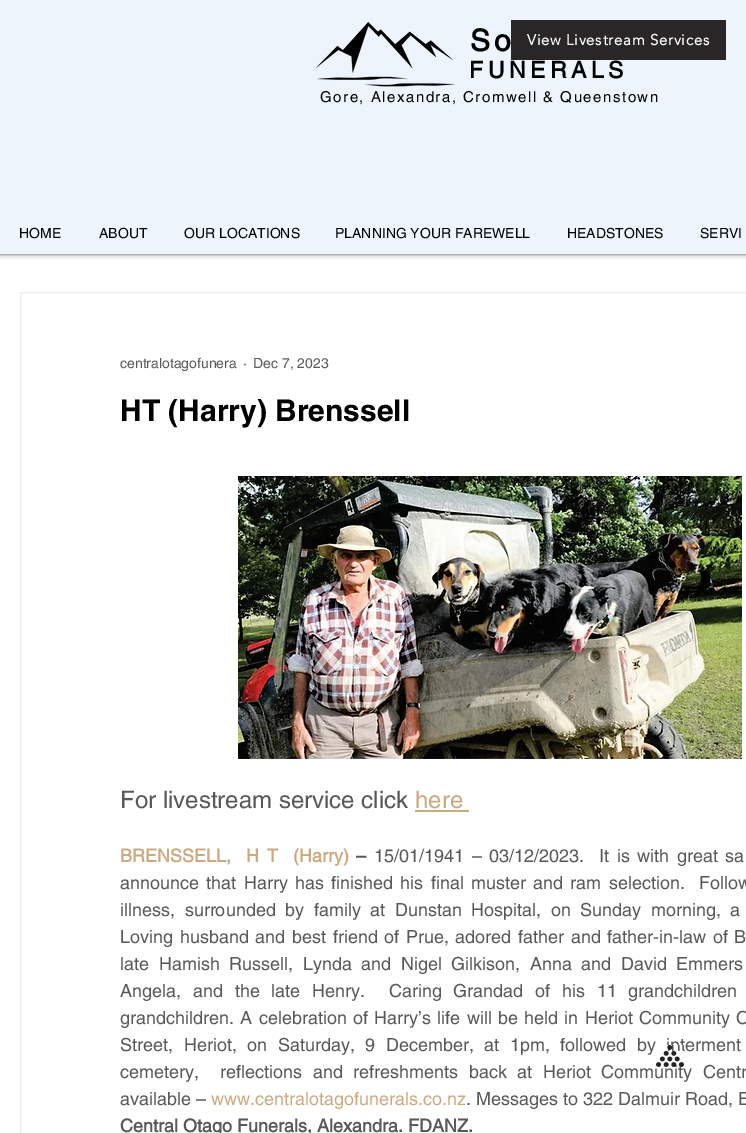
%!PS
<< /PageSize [746 1133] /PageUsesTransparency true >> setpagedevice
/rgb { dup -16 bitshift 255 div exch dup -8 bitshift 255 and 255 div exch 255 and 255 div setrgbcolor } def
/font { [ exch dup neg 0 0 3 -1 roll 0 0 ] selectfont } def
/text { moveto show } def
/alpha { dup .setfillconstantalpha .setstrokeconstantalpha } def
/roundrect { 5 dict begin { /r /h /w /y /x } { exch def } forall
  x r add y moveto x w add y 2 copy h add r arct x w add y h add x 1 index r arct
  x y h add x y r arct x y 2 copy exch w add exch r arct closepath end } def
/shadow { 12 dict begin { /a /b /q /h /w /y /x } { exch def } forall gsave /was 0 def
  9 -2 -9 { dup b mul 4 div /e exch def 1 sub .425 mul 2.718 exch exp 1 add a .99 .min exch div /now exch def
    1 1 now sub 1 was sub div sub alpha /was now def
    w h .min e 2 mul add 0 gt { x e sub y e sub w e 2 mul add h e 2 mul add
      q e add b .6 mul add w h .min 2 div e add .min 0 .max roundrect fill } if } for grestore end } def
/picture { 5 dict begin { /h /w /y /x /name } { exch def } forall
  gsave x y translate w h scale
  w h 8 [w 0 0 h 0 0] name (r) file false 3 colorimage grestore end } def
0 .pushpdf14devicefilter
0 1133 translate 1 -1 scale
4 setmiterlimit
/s1 { /helvetica-Regular 14 font 16#000000 rgb } def
/s2 { /helvetica-Regular 14 font 16#595959 rgb } def
/s3 { /helvetica-Bold 30 font 16#000000 rgb } def
/s4 { /helvetica-Regular 24 font 16#595959 rgb } def
/s5 { /helvetica-Regular 24 font 16#CBAA81 rgb } def
/s6 { /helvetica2-Bold 18 font 16#595959 rgb } def
/s7 { /helvetica-Regular 18 font 16#595959 rgb } def
/s8 { /helvetica-Regular 18 font 16#CBAA81 rgb } def
16#FFFFFF rgb
0 0 746 1133 rectfill
16#000000 rgb
0 0 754 254 0 2.5 0.7 shadow
16#EEF4FB rgb
0 0 746 254 rectfill
(pic1.raw) 315 22 140 65 picture
/helvetica2-Bold 30 font
16#000000 rgb
470 51 moveto 4 0 (So) ashow
/helvetica2-Bold 23 font
469 78 moveto 4.5 0 (FUNERALS) ashow
/helvetica-Regular 15 font
320 102 moveto 1.5 0 (Gore, Alexandra, Cromwell & Queenstown) ashow
s1
(HOME) 19 238 text
(ABOUT) 99 238 text
(OUR LOCATIONS) 184 238 text
(PLANNING YOUR FAREWELL) 335 238 text
(HEADSTONES) 567 238 text
(SERVI) 700 238 text
16#282626 rgb
511 20 215 40 rectfill
/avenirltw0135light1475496-Bold 15 font
16#FFFFFF rgb
527 45 moveto 0.75 0 (View Livestream Services) ashow
16#EEECEC rgb
20.5 292.5 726 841 rectstroke
s2
(centralotagofunera) 120 368 text
(·) 243 368 text
(Dec 7, 2023) 253 368 text
s3
(HT \(Harry\) Brenssell) 120 421 text
(pic2.raw) 238 476 504 283 picture
s4
(For livestream service click) 120 808 text
s5
(here) 415 808 text
415 810 54 2 rectfill
/helvetica2-Bold 18 font
120 862 moveto 2.5 0 32 (BRENSSELL,  H T  \(Harry\)) widthshow
s6
(–) 356 862 text
/helvetica-Regular 18 font
374 862 moveto 2.5 0 32 (15/01/1941 – 03/12/2023.  It is with great sa) widthshow
120 889 moveto 2.25 0 32 (announce that Harry has finished his final muster and ram selection.  Follow) widthshow
120 916 moveto 4.5 0 32 (illness, surrounded by family at Dunstan Hospital, on Sunday morning, a) widthshow
120 943 moveto 1.6 0 32 (Loving husband and best friend of Prue, adored father and father-in-law of B) widthshow
120 970 moveto 4.5 0 32 (late Hamish Russell, Lynda and Nigel Gilkison, Anna and David Emmers) widthshow
120 997 moveto 6.75 0 32 (Angela, and the late Henry.  Caring Grandad of his 11 grandchildren) widthshow
120 1024 moveto 1.25 0 32 (grandchildren. A celebration of Harry’s life will be held in Heriot Community C) widthshow
120 1051 moveto 5.5 0 32 (Street, Heriot, on Saturday, 9 December, at 1pm, followed by interment) widthshow
120 1078 moveto 5.5 0 32 (cemetery,  reflections and refreshments back at Heriot Community Centr) widthshow
(available –) 120 1105 text
s8
(www.centralotagofunerals.co.nz) 211 1105 text
s7
(. Messages to 322 Dalmuir Road, E) 466 1105 text
s6
(Central Otago Funerals, Alexandra. FDANZ.) 120 1132 text
(pic3.raw) 656 1045 28 22 picture
.poppdf14devicefilter showpage
